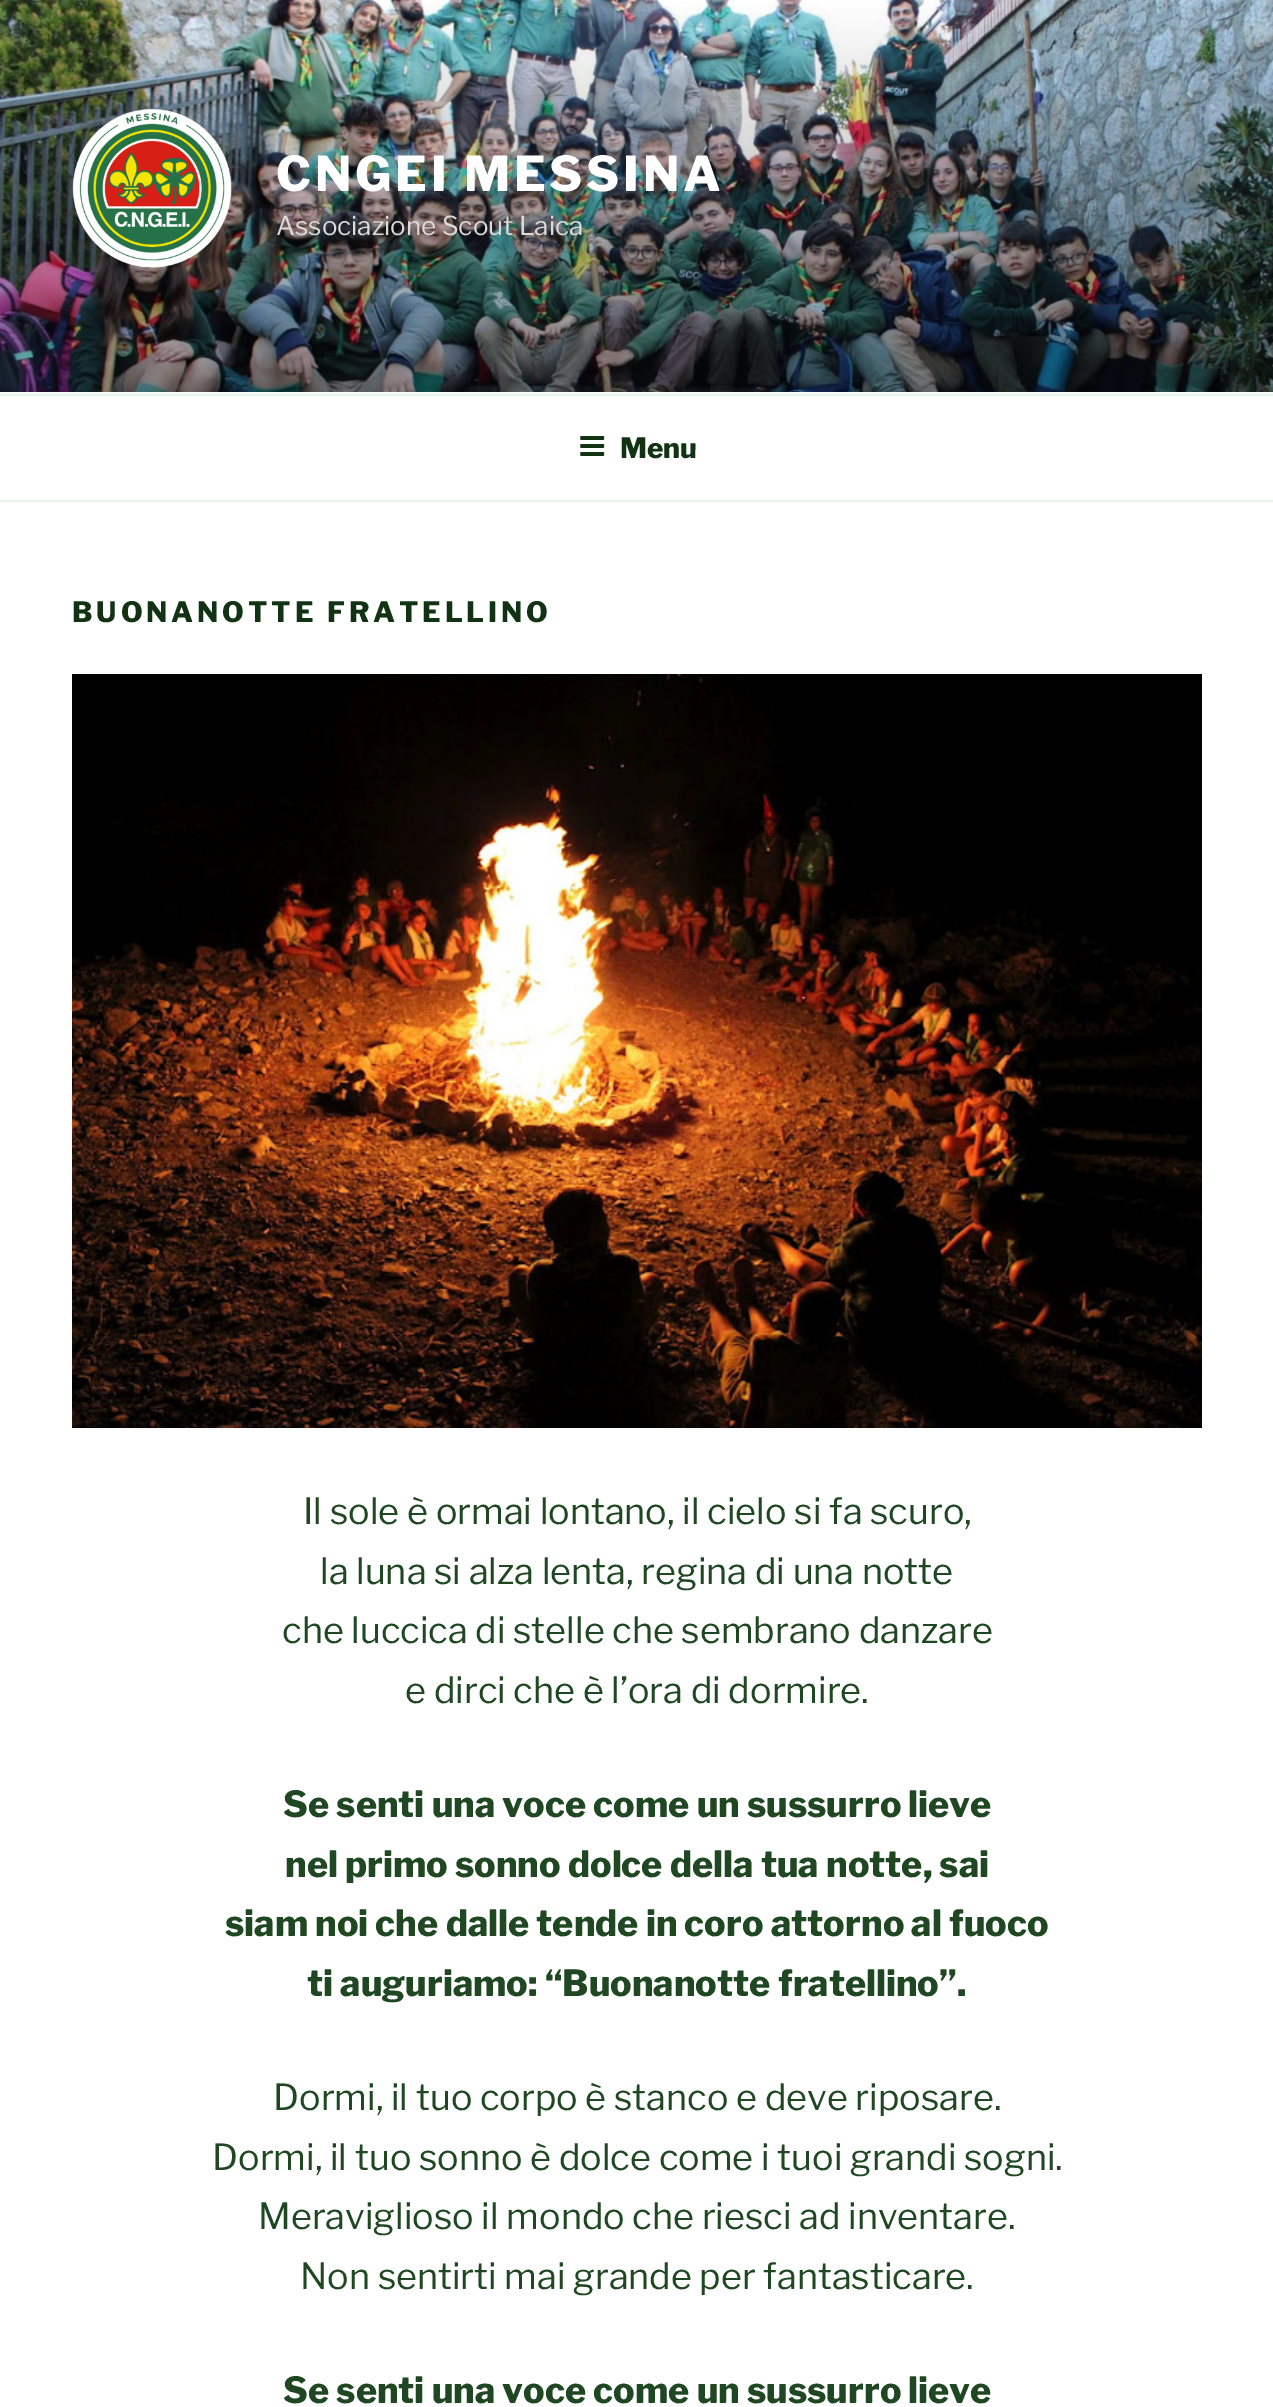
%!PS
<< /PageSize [1273 2407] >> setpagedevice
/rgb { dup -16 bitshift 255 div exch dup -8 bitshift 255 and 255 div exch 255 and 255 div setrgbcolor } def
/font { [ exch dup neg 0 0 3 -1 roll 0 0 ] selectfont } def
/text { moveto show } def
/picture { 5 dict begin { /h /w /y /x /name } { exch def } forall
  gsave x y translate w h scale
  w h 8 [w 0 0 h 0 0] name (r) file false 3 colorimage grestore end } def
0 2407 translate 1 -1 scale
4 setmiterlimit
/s1 { /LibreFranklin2-Thin 26 font 16#DBDBDB rgb } def
/s2 { /LibreFranklin-Thin 28 font 16#113213 rgb } def
/s3 { /LibreFranklin2-Thin 36 font 16#1F4722 rgb } def
/s4 { /LibreFranklin-Thin 36 font 16#1F4722 rgb } def
16#FFFFFF rgb
0 0 1273 2407 rectfill
16#F7FCF8 rgb
0 392 1273 2 rectfill
(pic1.raw) 0 0 1273 392 picture
(pic2.raw) 72 108 160 160 picture
/LibreFranklin-Thin 48 font
16#FFFFFF rgb
276 191 moveto 3.8 0 (CNGEI MESSINA) ashow
s1
(Associazione Scout Laica) 276 235 text
16#E4F6E6 rgb
0 394 1273 2 rectfill
0 500 1273 2 rectfill
(pic3.raw) 580 436 25 20 picture
s2
(Menu) 620 458 text
72 622 moveto 3.9 0 (BUONANOTTE FRATELLINO) ashow
(pic4.raw) 72 674 1130 754 picture
s3
(Il sole è ormai lontano, il cielo si fa scuro,) 303 1524 text
(la luna si alza lenta, regina di una notte) 320 1584 text
(che luccica di stelle che sembrano danzare) 282 1643 text
(e dirci che è l’ora di dormire.) 405 1703 text
s4
(Se senti una voce come un sussurro lieve) 283 1817 text
(nel primo sonno dolce della tua notte, sai) 285 1877 text
(siam noi che dalle tende in coro attorno al fuoco) 225 1936 text
(ti auguriamo: “Buonanotte fratellino”.) 307 1996 text
s3
(Dormi, il tuo corpo è stanco e deve riposare.) 273 2110 text
(Dormi, il tuo sonno è dolce come i tuoi grandi sogni.) 212 2170 text
(Meraviglioso il mondo che riesci ad inventare.) 258 2229 text
(Non sentirti mai grande per fantasticare.) 300 2289 text
s4
(Se senti una voce come un sussurro lieve) 283 2403 text
showpage
